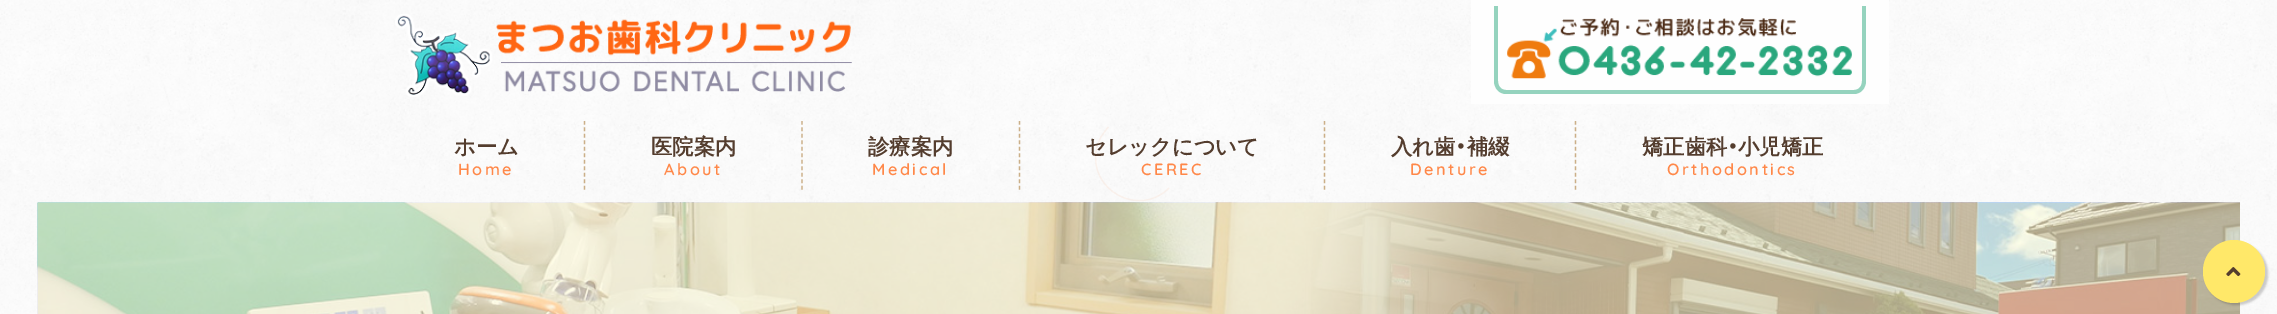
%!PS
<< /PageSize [2277 314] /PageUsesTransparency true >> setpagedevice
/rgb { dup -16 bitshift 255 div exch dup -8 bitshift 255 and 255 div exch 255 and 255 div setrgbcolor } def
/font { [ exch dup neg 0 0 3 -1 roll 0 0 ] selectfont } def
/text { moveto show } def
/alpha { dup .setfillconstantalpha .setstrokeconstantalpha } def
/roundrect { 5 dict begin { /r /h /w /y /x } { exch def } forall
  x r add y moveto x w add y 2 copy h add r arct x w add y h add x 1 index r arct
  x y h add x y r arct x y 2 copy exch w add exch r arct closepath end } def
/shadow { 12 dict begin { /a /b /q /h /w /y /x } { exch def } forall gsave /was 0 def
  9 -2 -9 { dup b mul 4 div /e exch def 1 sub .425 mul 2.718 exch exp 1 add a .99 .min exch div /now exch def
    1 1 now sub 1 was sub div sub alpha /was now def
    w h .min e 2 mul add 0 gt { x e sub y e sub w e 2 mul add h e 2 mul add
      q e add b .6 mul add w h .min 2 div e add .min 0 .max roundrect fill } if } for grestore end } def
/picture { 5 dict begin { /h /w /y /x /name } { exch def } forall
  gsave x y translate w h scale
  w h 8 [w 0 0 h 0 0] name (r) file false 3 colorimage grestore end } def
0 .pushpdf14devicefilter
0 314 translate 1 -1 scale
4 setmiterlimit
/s1 { /WenQuanYiZenHei-Bold 21.25 font 16#543D2E rgb } def
/s2 { /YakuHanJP-Bold 21.25 font 16#543D2E rgb } def
16#FFFFFF rgb
0 0 2277 314 rectfill
(pic1.raw) 0 0 2277 314 picture
0.06 alpha
16#FF5C04 rgb
1.2 setlinewidth
1169 188 moveto 1139.5 218 1088 190.5 1096.5 149 curveto 1098 140.5 1102.5 133 1108.5 127 curveto stroke
1 alpha
(pic2.raw) 395 14 457 83 picture
16#FEFEFE rgb
1471 0 418 104 rectfill
16#95D3BE rgb
1494 6 moveto 1866 6 lineto 1866 81 lineto 1866 88 1861 94 1854 94 curveto 1506 94 lineto 1499 94 1494 88 1494 81 curveto closepath 1498 6 moveto 1862 6 lineto 1862 81 lineto 1862 86 1859 90 1854 90 curveto 1506 90 lineto 1501 90 1498 86 1498 81 curveto closepath eofill
(pic3.raw) 1507 18 345 61 picture
16#CBAF88 rgb
[3.75 2.75] 0 setdash
584.5 121 moveto 584.5 190 lineto stroke
s1
(ホーム) 454 154 text
/Quicksand-SemiBold 16.25 font
16#FF8849 rgb
458 175 moveto 2.5 0 (Home) ashow
16#CBAF88 rgb
802 121 moveto 802 190 lineto stroke
s1
(医院案内) 651 154 text
/Quicksand-SemiBold 16.25 font
16#FF8849 rgb
664 175 moveto 2.5 0 (About) ashow
16#CBAF88 rgb
1019.5 121 moveto 1019.5 190 lineto stroke
s1
(診療案内) 868 154 text
/Quicksand-SemiBold 16.25 font
16#FF8849 rgb
872 175 moveto 2.5 0 (Medical) ashow
16#CBAF88 rgb
1324.5 121 moveto 1324.5 190 lineto stroke
s1
(セレックについて) 1085 154 text
/Quicksand-SemiBold 16.25 font
16#FF8849 rgb
1141 175 moveto 2.5 0 (CEREC) ashow
16#CBAF88 rgb
1575.5 121 moveto 1575.5 190 lineto stroke
s1
(入れ歯) 1391 154 text
s2
(・) 1455 154 text
s1
(補綴) 1467 154 text
/Quicksand-SemiBold 16.25 font
16#FF8849 rgb
1410 175 moveto 2.5 0 (Denture) ashow
s1
(矯正歯科) 1642 154 text
s2
(・) 1727 154 text
s1
(小児矯正) 1738 154 text
/Quicksand-SemiBold 16.25 font
16#FF8849 rgb
1667 175 moveto 2.5 0 (Orthodontics) ashow
(pic4.raw) 37 202 2203 112 picture
16#0F0F0F rgb
2205 243 63 62 31 1 0.2 shadow
16#FFE869 rgb
2203 240 62 63 31 roundrect fill
(pic5.raw) 2226 267 15 10 picture
.poppdf14devicefilter showpage
